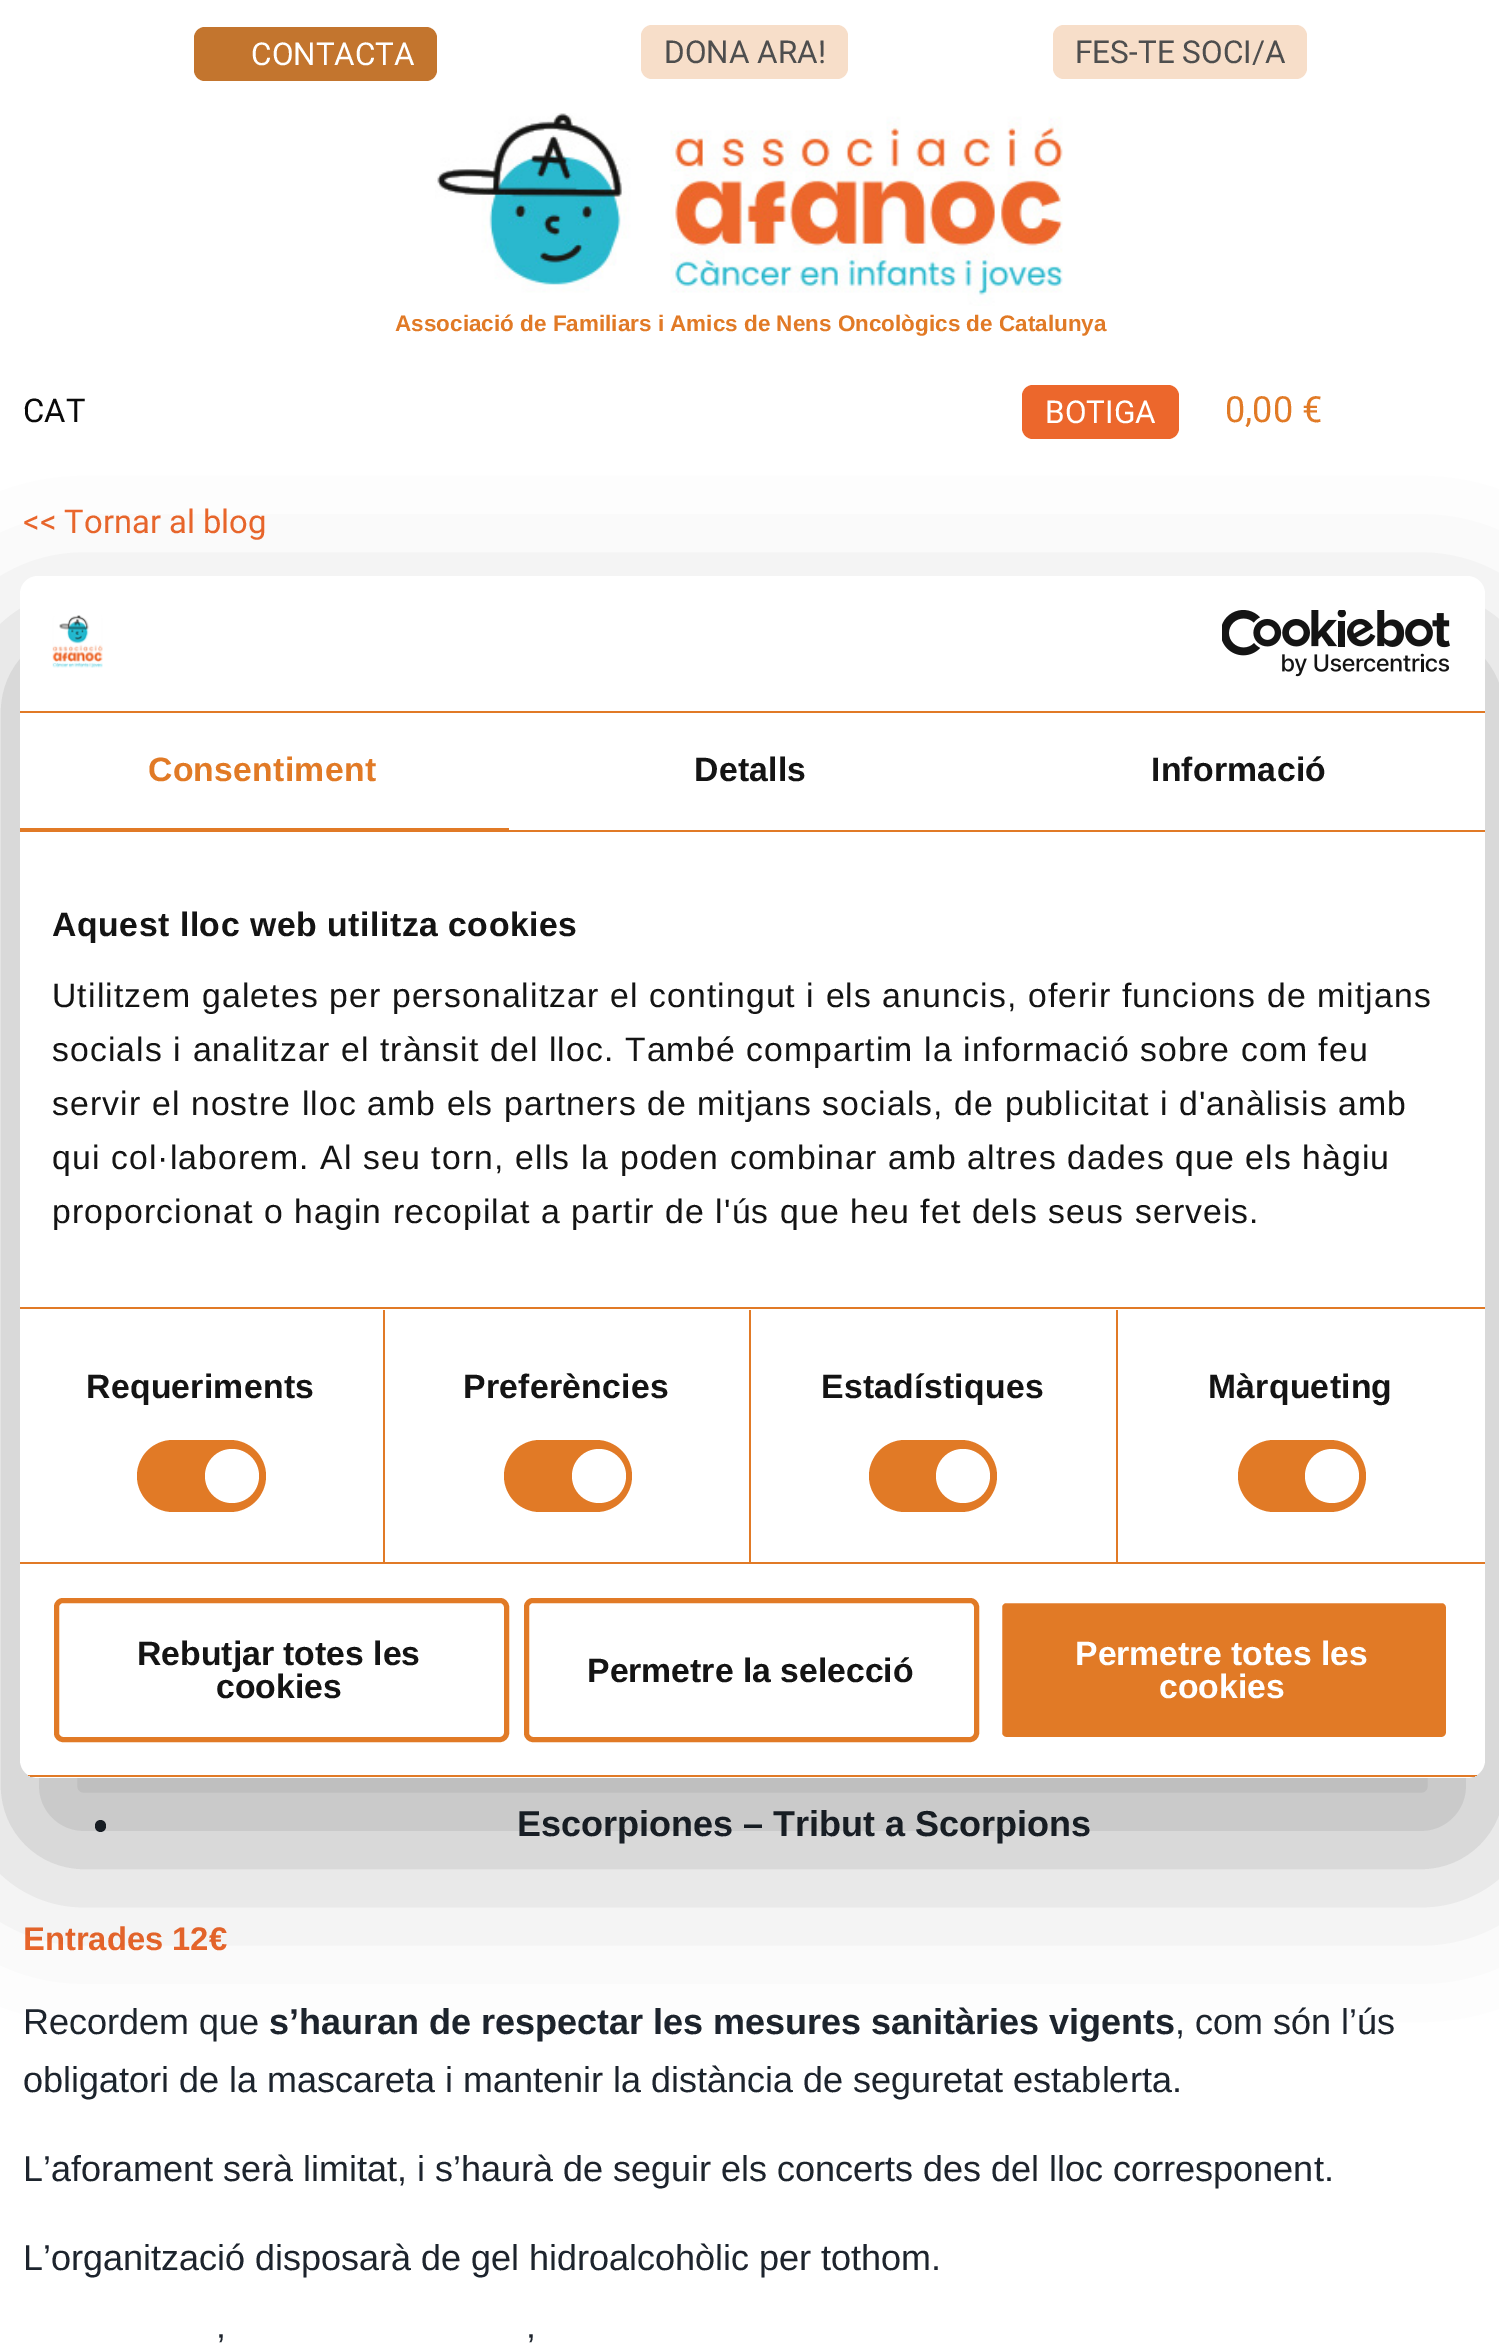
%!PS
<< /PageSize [1499 2350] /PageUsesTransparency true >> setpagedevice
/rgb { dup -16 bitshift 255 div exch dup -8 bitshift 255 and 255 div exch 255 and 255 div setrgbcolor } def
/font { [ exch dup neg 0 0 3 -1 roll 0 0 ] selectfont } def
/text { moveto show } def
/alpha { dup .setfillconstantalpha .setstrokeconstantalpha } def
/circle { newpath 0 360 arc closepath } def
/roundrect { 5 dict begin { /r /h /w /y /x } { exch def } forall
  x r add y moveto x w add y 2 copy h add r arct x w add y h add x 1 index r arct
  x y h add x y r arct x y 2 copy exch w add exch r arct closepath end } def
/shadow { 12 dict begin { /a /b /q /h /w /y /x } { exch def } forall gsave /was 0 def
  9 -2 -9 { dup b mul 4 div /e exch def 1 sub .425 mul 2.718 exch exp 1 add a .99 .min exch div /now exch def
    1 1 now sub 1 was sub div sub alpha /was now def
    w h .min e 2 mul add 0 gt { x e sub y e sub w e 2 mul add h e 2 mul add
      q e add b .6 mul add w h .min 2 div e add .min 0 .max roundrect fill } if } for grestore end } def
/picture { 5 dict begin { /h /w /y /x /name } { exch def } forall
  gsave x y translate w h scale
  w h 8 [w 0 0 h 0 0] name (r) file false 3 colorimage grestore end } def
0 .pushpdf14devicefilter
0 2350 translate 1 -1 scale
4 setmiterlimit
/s1 { /Roboto-Regular 31.5 font 16#FFFFFF rgb } def
/s2 { /Roboto-Regular 31.5 font 16#4E4E4E rgb } def
/s3 { /LiberationSans-Bold 22.5 font 16#E17A26 rgb } def
/s4 { /Roboto-Regular 32.75 font 16#0A0A0A rgb } def
/s5 { /Roboto-Regular 36 font 16#E17A26 rgb } def
/s6 { /Roboto-Regular 32.75 font 16#EC672C rgb } def
/s7 { /LiberationSans-Bold 36 font 16#1D242D rgb } def
/s8 { /LiberationSans-Bold 32.75 font 16#EC672C rgb } def
/s9 { /LiberationSans-Regular 36 font 16#1D242D rgb } def
/s10 { /LiberationSans-Bold 33.75 font 16#141414 rgb } def
/s11 { /LiberationSans-Bold 33.75 font 16#FFFFFF rgb } def
16#FFFFFF rgb
0 0 1499 2350 rectfill
16#C3752E rgb
194 27 243 54 11 roundrect fill
s1
(CONTACTA) 251 65 text
16#F7DEC9 rgb
641 25 207 54 11 roundrect fill
s2
(DONA ARA!) 664 63 text
16#F7DEC9 rgb
1053 25 254 54 11 roundrect fill
s2
(FES-TE SOCI/A) 1075 63 text
(pic1.raw) 435 113 628 193 picture
s3
(Associació de Familiars i Amics de Nens Oncològics de Catalunya) 395 331 text
s4
(CAT) 23 422 text
16#EC672C rgb
1022 385 157 54 11 roundrect fill
s1
(BOTIGA) 1045 423 text
s5
(0,00 €) 1225 422 text
s6
(<< Tornar al blog) 23 533 text
16#1D242D rgb
95 1820 11 12 5.5 roundrect fill
s7
(Escorpiones – Tribut a Scorpions) 517 1836 text
s8
(Entrades 12€) 23 1950 text
s9
(Recordem que) 23 2034 text
s7
(s’hauran de respectar les mesures sanitàries vigents) 269 2034 text
s9
(, com són l’ús) 1175 2034 text
(obligatori de la mascareta i mantenir la distància de seguretat establerta.) 23 2092 text
(L’aforament serà limitat, i s’haurà de seguir els concerts des del lloc corresponent.) 23 2181 text
(L’organització disposarà de gel hidroalcohòlic per tothom.) 23 2270 text
(’) 217 2359 text
(’) 527 2359 text
16#000000 rgb
20 648 1465 1202 18 76.5 0.3 shadow
16#FFFFFF rgb
20 576 1465 1202 18 roundrect fill
16#E17A26 rgb
20 711 1465 2 rectfill
(pic2.raw) 52 615 51 53 picture
(pic3.raw) 1222 610 228 67 picture
20 830 1465 2 rectfill
20 828 489 2 rectfill
/LiberationSans-Bold 33.75 font
148 781 moveto 0.25 0 (Consentiment) ashow
16#141414 rgb
694 781 moveto 0.25 0 (Detalls) ashow
1151 781 moveto 0.25 0 (Informació) ashow
16#E17A26 rgb
20 1307 1465 2 rectfill
16#141414 rgb
52 936 moveto 0.55 0 (Aquest lloc web utilitza cookies) ashow
/LiberationSans-Regular 33.75 font
52 1007 moveto 1.12 0 (Utilitzem galetes per personalitzar el contingut i els anuncis, oferir funcions de mitjans) ashow
52 1061 moveto 1.12 0 (socials i analitzar el trànsit del lloc. També compartim la informació sobre com feu) ashow
52 1115 moveto 1.12 0 (servir el nostre lloc amb els partners de mitjans socials, de publicitat i d'anàlisis amb) ashow
52 1169 moveto 1.12 0 (qui col·laborem. Al seu torn, ells la poden combinar amb altres dades que els hàgiu) ashow
52 1223 moveto 1.12 0 (proporcionat o hagin recopilat a partir de l'ús que heu fet dels seus serveis.) ashow
16#E17A26 rgb
20 1562 1465 2 rectfill
383 1310 2 252 rectfill
/LiberationSans-Bold 33.75 font
16#141414 rgb
86 1398 moveto 0.25 0 (Requeriments) ashow
16#E17A26 rgb
137 1440 129 72 36 roundrect fill
16#FFFFFF rgb
232 1476 27 circle fill
16#E17A26 rgb
749 1310 2 252 rectfill
16#141414 rgb
463 1398 moveto 0.25 0 (Preferències) ashow
16#E17A26 rgb
504 1440 128 72 36 roundrect fill
16#FFFFFF rgb
599 1476 27 circle fill
16#E17A26 rgb
1116 1310 2 252 rectfill
16#141414 rgb
821 1398 moveto 0.25 0 (Estadístiques) ashow
16#E17A26 rgb
869 1440 128 72 36 roundrect fill
16#FFFFFF rgb
963 1476 27 circle fill
16#141414 rgb
1208 1398 moveto 0.25 0 (Màrqueting) ashow
16#E17A26 rgb
1238 1440 128 72 36 roundrect fill
16#FFFFFF rgb
1332 1476 27 circle fill
gsave
20 576 1465 1202 18 roundrect clip newpath
16#E17A26 rgb
20 1775 1465 2 rectfill
grestore
16#E17A26 rgb
5 setlinewidth
56.5 1600.5 450 139 6.5 roundrect stroke
s10
(Rebutjar totes les) 137 1665 text
(cookies) 216 1698 text
16#E17A26 rgb
526.5 1600.5 450 139 6.5 roundrect stroke
s10
(Permetre la selecció) 587 1682 text
16#E17A26 rgb
999.5 1600.5 449 139 6.5 roundrect gsave fill grestore
16#FFFFFF rgb
stroke
(Permetre totes les) 1075 1665 text
(cookies) 1159 1698 text
.poppdf14devicefilter showpage
